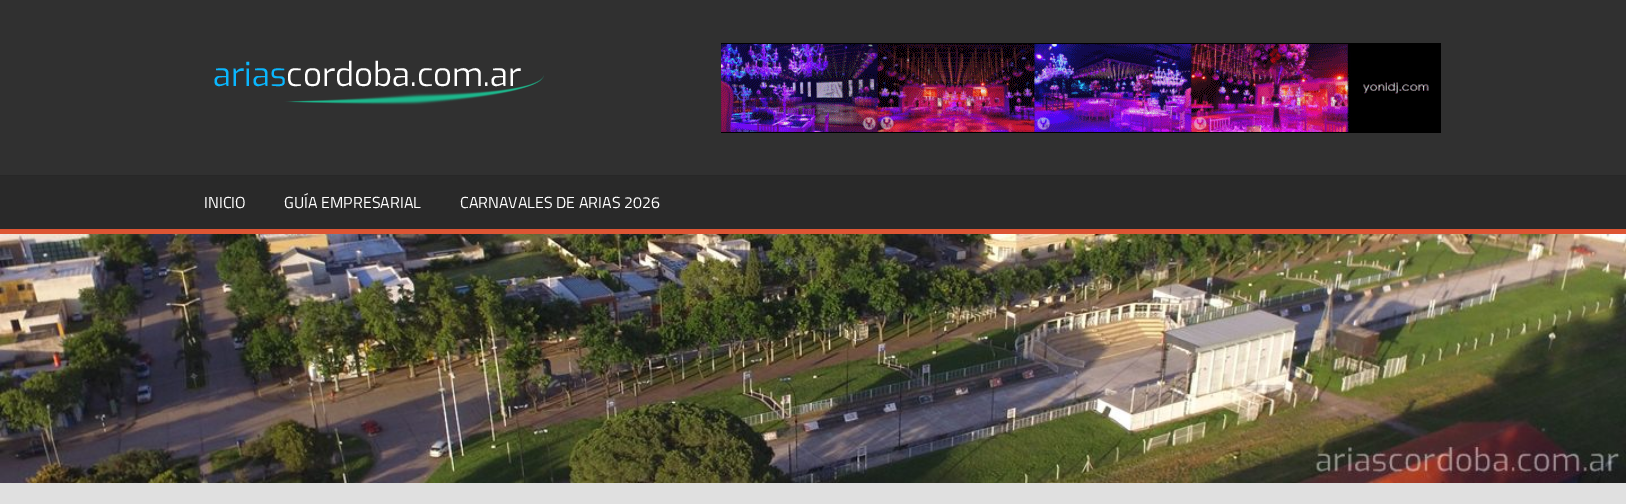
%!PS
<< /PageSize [1626 504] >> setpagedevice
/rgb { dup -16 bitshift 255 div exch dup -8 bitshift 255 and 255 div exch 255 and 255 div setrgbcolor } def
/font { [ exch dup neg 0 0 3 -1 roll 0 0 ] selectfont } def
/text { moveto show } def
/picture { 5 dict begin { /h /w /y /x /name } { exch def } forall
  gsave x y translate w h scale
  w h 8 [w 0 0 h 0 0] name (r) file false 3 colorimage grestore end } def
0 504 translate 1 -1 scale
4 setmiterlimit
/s1 { /TitilliumWeb-Regular 16 font 16#FFFFFF rgb } def
16#E0E0E0 rgb
0 0 1626 504 rectfill
16#303030 rgb
0 0 1626 175 rectfill
(pic1.raw) 214 60 330 45 picture
(pic2.raw) 721 43 720 90 picture
16#292929 rgb
0 176 1626 53 rectfill
16#272727 rgb
0 175 1626 1 rectfill
16#DD5533 rgb
0 229 1626 5 rectfill
s1
(INICIO) 204 208 text
(GUÍA EMPRESARIAL) 284 208 text
(CARNAVALES DE ARIAS 2026) 460 208 text
(pic3.raw) 0 234 1626 249 picture
showpage
